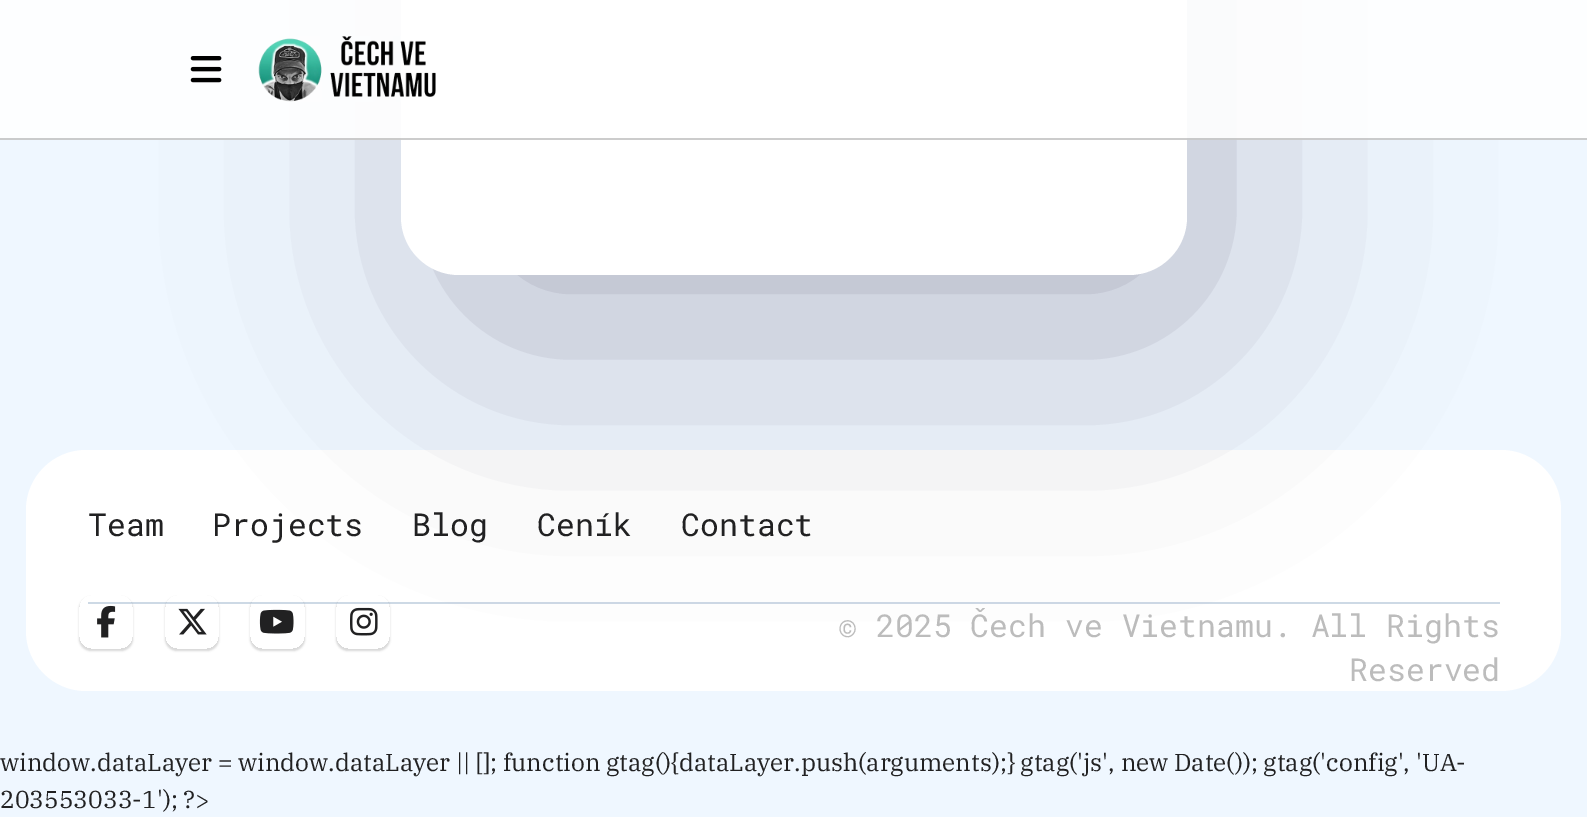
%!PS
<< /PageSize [1587 817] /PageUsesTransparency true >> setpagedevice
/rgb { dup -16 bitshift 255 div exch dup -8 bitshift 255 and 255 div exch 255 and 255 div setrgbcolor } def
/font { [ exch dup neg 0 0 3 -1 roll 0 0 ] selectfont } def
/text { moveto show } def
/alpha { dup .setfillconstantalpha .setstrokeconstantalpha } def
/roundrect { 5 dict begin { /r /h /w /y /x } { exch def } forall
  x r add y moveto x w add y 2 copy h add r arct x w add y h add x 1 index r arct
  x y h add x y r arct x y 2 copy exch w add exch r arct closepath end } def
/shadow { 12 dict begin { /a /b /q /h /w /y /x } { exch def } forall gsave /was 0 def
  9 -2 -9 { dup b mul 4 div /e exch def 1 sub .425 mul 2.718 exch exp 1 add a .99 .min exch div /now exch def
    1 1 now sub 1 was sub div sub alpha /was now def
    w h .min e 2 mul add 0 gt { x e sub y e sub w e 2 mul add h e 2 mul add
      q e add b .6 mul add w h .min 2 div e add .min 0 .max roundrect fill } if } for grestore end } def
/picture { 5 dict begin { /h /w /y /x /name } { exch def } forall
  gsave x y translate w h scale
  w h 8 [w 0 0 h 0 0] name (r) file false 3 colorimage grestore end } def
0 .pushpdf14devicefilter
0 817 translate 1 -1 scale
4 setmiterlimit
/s1 { /RobotoMono-Regular 31.5 font 16#212122 rgb } def
/s2 { /RobotoMono-Regular 31.5 font 16#BCBCBC rgb } def
/s3 { /IBMPlexSerif-Regular 24.5 font 16#212122 rgb } def
16#EFF7FF rgb
0 0 1587 817 rectfill
16#FFFFFF rgb
86 450 moveto 1501 450 lineto 1534 450 1561 477 1561 510 curveto 1561 602 lineto 26 602 lineto 26 510 lineto 26 477 53 450 86 450 curveto closepath fill
26 602 moveto 1561 602 lineto 1561 631 lineto 1561 664 1534 691 1501 691 curveto 86 691 lineto 53 691 26 664 26 631 curveto closepath fill
16#CDD9E5 rgb
88 602 1412 2 rectfill
16#0F0028 rgb
453 -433 751 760 40 131 0.27 shadow
16#FFFFFF rgb
401 -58 786 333 58 roundrect fill
0.9 alpha
0 0 1587 140 rectfill
0.2 alpha
16#000000 rgb
0 138 1587 2 rectfill
1 alpha
(pic1.raw) 190 56 32 27 picture
(pic2.raw) 258 36 178 66 picture
s1
(Team) 88 536 text
(Projects) 212 536 text
(Blog) 412 536 text
(Ceník) 537 536 text
(Contact) 681 536 text
gsave
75 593 moveto 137 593 lineto 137 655 lineto 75 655 lineto closepath 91 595 moveto 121 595 lineto 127.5 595 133 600.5 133 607 curveto 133 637 lineto 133 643.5 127.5 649 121 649 curveto 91 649 lineto 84.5 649 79 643.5 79 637 curveto 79 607 lineto 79 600.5 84.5 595 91 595 curveto closepath eoclip newpath
16#000000 rgb
79 597 54 54 12 1 0.15 shadow
grestore
(pic3.raw) 97 605 19 33 picture
gsave
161 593 moveto 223 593 lineto 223 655 lineto 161 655 lineto closepath 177 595 moveto 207 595 lineto 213.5 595 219 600.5 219 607 curveto 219 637 lineto 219 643.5 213.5 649 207 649 curveto 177 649 lineto 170.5 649 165 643.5 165 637 curveto 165 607 lineto 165 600.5 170.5 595 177 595 curveto closepath eoclip newpath
16#000000 rgb
165 597 54 54 12 1 0.15 shadow
grestore
(pic4.raw) 178 608 29 27 picture
gsave
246 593 moveto 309 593 lineto 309 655 lineto 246 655 lineto closepath 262 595 moveto 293 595 lineto 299.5 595 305 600.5 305 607 curveto 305 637 lineto 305 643.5 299.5 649 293 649 curveto 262 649 lineto 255.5 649 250 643.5 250 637 curveto 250 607 lineto 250 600.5 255.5 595 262 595 curveto closepath eoclip newpath
16#000000 rgb
250 597 55 54 12 1 0.15 shadow
grestore
(pic5.raw) 259 609 35 25 picture
gsave
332 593 moveto 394 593 lineto 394 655 lineto 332 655 lineto closepath 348 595 moveto 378 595 lineto 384.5 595 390 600.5 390 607 curveto 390 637 lineto 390 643.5 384.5 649 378 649 curveto 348 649 lineto 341.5 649 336 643.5 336 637 curveto 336 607 lineto 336 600.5 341.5 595 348 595 curveto closepath eoclip newpath
16#000000 rgb
336 597 54 54 12 1 0.15 shadow
grestore
(pic6.raw) 350 607 28 29 picture
s2
(© 2025 Čech ve Vietnamu. All Rights) 838 637 text
(Reserved) 1349 681 text
s3
(window.dataLayer = window.dataLayer || []; function gtag\(\){dataLayer.push\(arguments\);} gtag\('js', new Date\(\)\); gtag\('config', 'UA-) 0 771 text
(203553033-1'\); ?>) 0 808 text
.poppdf14devicefilter showpage
